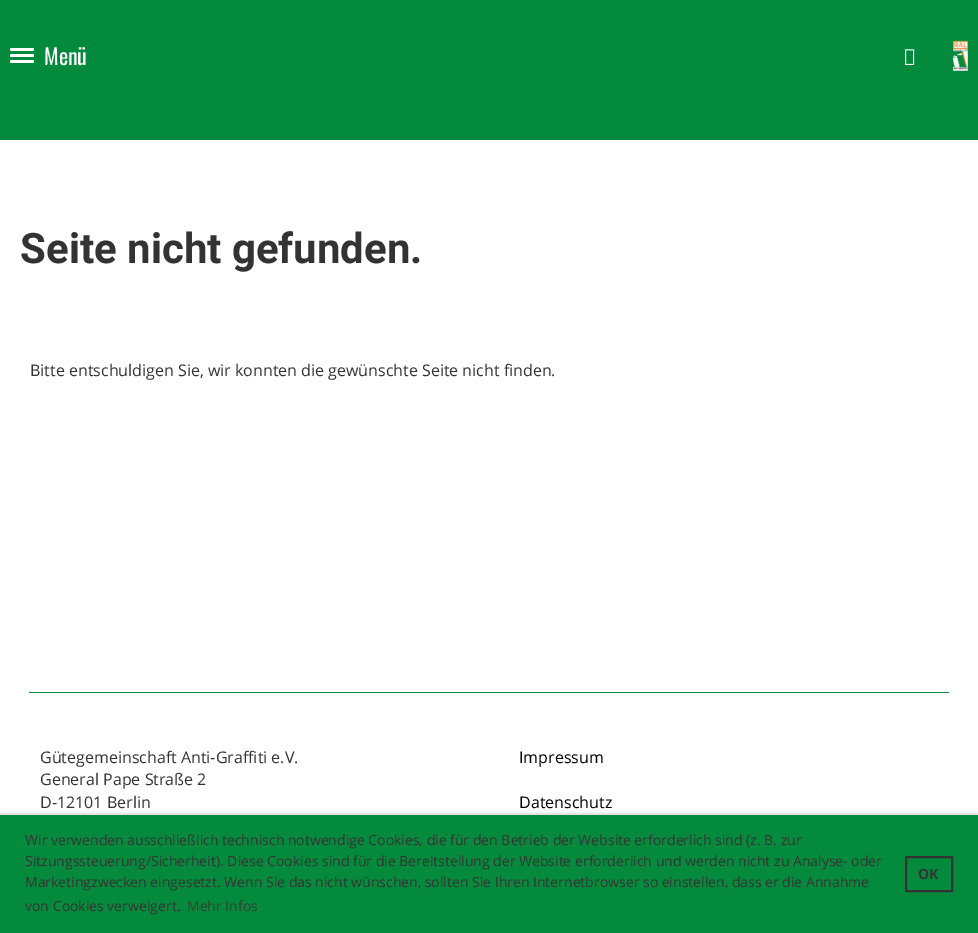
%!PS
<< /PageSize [978 933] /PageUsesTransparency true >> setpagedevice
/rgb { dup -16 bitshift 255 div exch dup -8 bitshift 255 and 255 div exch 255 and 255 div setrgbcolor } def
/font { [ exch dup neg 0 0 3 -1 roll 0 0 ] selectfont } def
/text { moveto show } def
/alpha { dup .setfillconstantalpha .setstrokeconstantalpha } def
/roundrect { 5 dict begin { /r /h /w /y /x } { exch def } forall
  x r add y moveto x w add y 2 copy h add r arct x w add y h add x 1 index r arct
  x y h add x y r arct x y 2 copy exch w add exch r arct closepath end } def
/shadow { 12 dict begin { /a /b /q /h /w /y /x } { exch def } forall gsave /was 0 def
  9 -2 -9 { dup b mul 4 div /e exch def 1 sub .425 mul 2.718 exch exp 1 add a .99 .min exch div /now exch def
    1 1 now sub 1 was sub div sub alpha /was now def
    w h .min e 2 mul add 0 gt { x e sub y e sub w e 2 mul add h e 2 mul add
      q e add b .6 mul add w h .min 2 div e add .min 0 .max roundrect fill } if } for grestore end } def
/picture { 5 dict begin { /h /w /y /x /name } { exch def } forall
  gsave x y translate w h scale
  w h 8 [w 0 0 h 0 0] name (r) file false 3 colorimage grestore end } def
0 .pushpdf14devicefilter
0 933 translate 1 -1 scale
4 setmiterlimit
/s1 { /Oswald-Regular 22 font 16#FFFFFF rgb } def
/s2 { /Roboto-Bold 42 font 16#333333 rgb } def
/s3 { /OpenSans-Regular 16 font 16#333333 rgb } def
/s4 { /OpenSans-Regular 16 font 16#000000 rgb } def
/s5 { /OpenSans-Regular 14 font 16#333333 rgb } def
/s6 { /OpenSans-Regular 14 font 16#2A4435 rgb } def
/s7 { /OpenSans-Bold 14 font 16#333333 rgb } def
16#FFFFFF rgb
0 0 978 933 rectfill
16#048A3C rgb
0 0 978 140 rectfill
16#FFFFFF rgb
10 48 24 3 1.5 roundrect fill
10 54 24 3 1.5 roundrect fill
10 60 24 3 1.5 roundrect fill
s1
(Menü) 44 65 text
(pic1.raw) 905 49 10 16 picture
(pic2.raw) 953 40 15 31 picture
s2
(Seite nicht gefunden.) 20 263 text
s3
(Bitte entschuldigen Sie, wir konnten die gewünschte Seite nicht finden.) 30 376 text
16#048A3C rgb
29 692 920 1 rectfill
s3
(Gütegemeinschaft Anti-Graffiti e.V.) 40 763 text
(General Pape Straße 2) 40 785 text
(D-12101 Berlin) 40 808 text
s4
(Impressum) 519 763 text
(Datenschutz) 519 808 text
0 815 978 118 0 2.5 0.3 shadow
16#048A3C rgb
0 815 978 118 rectfill
s5
(Wir verwenden ausschließlich technisch notwendige Cookies, die für den Betrieb der Website erforderlich sind \(z. B. zur) 25 845 text
(Sitzungssteuerung/Sicherheit\). Diese Cookies sind für die Bereitstellung der Website erforderlich und werden nicht zu Analyse- oder) 25 866 text
(Marketingzwecken eingesetzt. Wenn Sie das nicht wünschen, sollten Sie Ihren Internetbrowser so einstellen, dass er die Annahme) 25 887 text
(von Cookies verweigert.) 25 911 text
s6
(Mehr Infos) 187 911 text
16#333333 rgb
2 setlinewidth
906 857 46 34 rectstroke
s7
(OK) 918 879 text
.poppdf14devicefilter showpage
